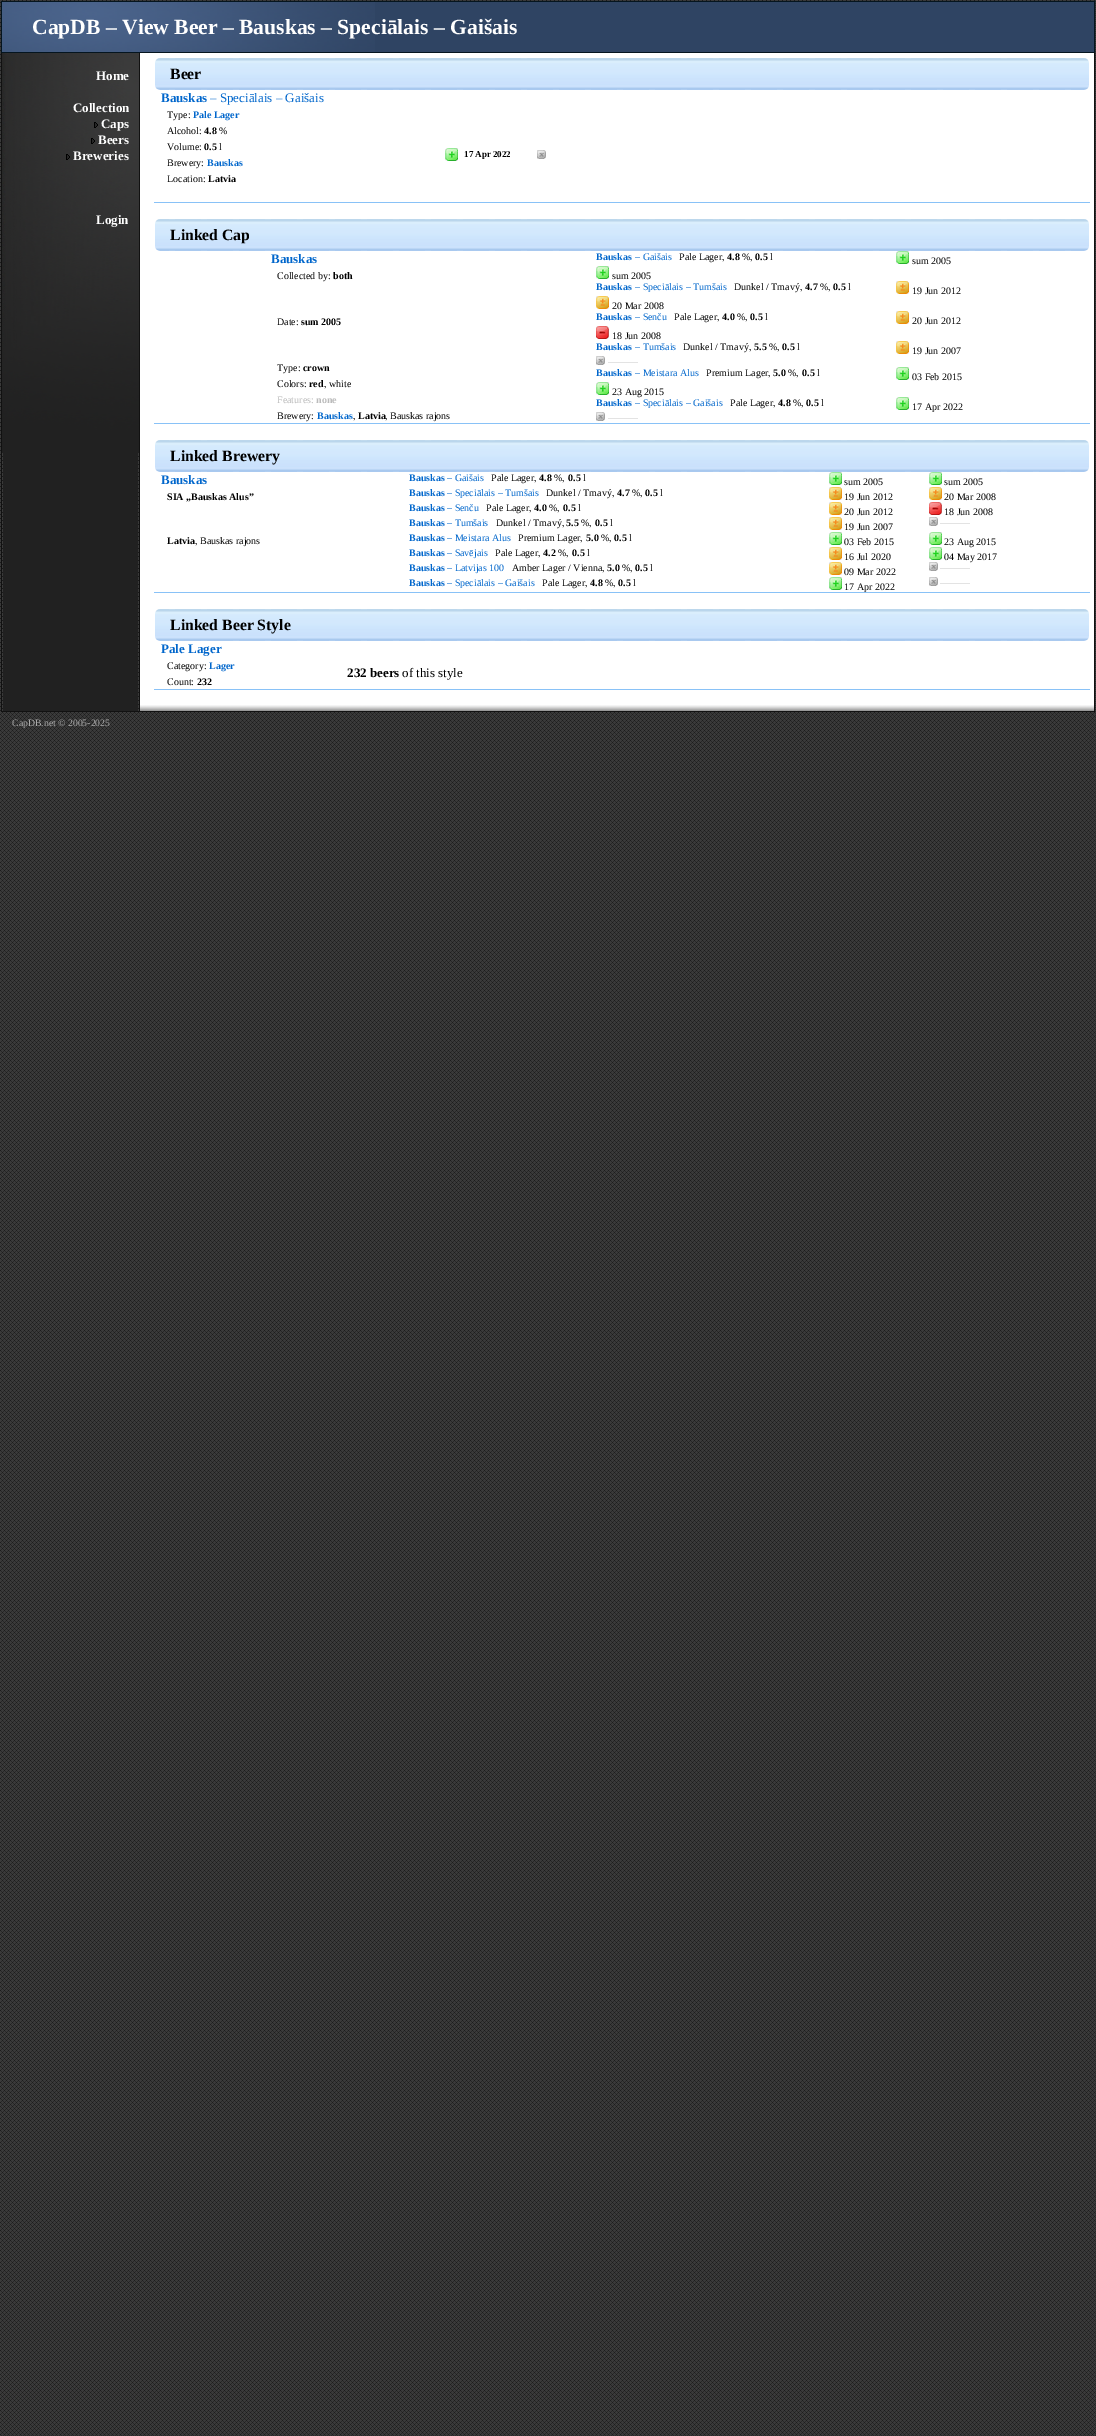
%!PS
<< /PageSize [1096 2436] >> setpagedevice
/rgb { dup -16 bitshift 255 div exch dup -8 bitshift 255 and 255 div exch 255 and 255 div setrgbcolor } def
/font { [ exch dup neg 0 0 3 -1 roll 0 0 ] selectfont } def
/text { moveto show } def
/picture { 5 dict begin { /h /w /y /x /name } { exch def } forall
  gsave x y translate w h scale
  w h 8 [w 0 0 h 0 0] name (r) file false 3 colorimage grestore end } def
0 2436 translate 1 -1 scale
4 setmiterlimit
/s1 { /LiberationSerif-Bold 21.6 font 16#FFFFFF rgb } def
/s2 { /LiberationSerif-Bold 13 font 16#FFFFFF rgb } def
/s3 { /LiberationSerif-Bold 15.75 font 16#000000 rgb } def
/s4 { /LiberationSerif-Bold 13 font 16#0066CC rgb } def
/s5 { /LiberationSerif-Regular 13 font 16#0066CC rgb } def
/s6 { /LiberationSerif-Regular 10 font 16#000000 rgb } def
/s7 { /LiberationSerif-Bold 10 font 16#0066CC rgb } def
/s8 { /LiberationSerif-Bold 9 font 16#000000 rgb } def
/s9 { /LiberationSerif-Bold 10 font 16#000000 rgb } def
/s10 { /LiberationSerif-Regular 10 font 16#0066CC rgb } def
/s11 { /LiberationSerif-Regular 10 font 16#CCCCCC rgb } def
/s12 { /LiberationSerif-Regular 10 font 16#BBBBBB rgb } def
/s13 { /LiberationSerif-Bold 10 font 16#BBBBBB rgb } def
/s14 { /LiberationSerif-Bold 13 font 16#000000 rgb } def
/s15 { /LiberationSerif-Regular 13 font 16#000000 rgb } def
/s16 { /LiberationSerif-Regular 9.75 font 16#AAAAAA rgb } def
16#FFFFFF rgb
0 0 1096 2436 rectfill
(pic1.raw) 0 0 1096 2436 picture
16#2F4463 rgb
375 2 719 50 rectfill
(pic2.raw) 2 2 373 50 picture
16#05151F rgb
1 1 1094 1 rectfill
16#111111 rgb
1094 52 1 660 rectfill
16#05151F rgb
1094 1 1 52 rectfill
16#111111 rgb
139 711 956 1 rectfill
139 52 1 660 rectfill
1 711 139 1 rectfill
1 52 1 660 rectfill
16#05151F rgb
1 52 1094 1 rectfill
1 1 1 52 rectfill
s1
(CapDB – View Beer – Bauskas – Speciālais – Gaišais) 32 34 text
16#212121 rgb
3 453 135 258 rectfill
(pic3.raw) 2 53 137 400 picture
s2
(Home) 96 80 text
(Collection) 73 112 text
(pic4.raw) 94 122 4 6 picture
(Caps) 101 128 text
(pic5.raw) 91 138 4 6 picture
(Beers) 98 144 text
(pic6.raw) 66 154 4 6 picture
(Breweries) 73 160 text
(Login) 96 224 text
140 53 954 645 rectfill
(pic7.raw) 140 698 954 13 picture
(pic8.raw) 155 58 934 32 picture
s3
(Beer) 170 79 text
s4
(Bauskas) 161 102 text
s5
(– Speciālais – Gaišais) 210 102 text
s6
(Type:) 167 118 text
s7
(Pale Lager) 193 118 text
(pic9.raw) 445 148 13 13 picture
s8
(17 Apr 2022) 464 157 text
(pic10.raw) 537 150 9 9 picture
s6
(Alcohol:) 167 134 text
s9
(4.8) 204 134 text
s6
(%) 219 134 text
(Volume:) 167 150 text
s9
(0.5) 204 150 text
s6
(l) 219 150 text
(Brewery:) 167 166 text
s7
(Bauskas) 207 166 text
s6
(Location:) 167 182 text
s9
(Latvia) 208 182 text
16#89C2F7 rgb
154 202 936 1 rectfill
(pic8.raw) 155 219 934 32 picture
s3
(Linked Cap) 170 240 text
s4
(Bauskas) 271 263 text
s7
(Bauskas) 596 260 text
s10
(– Gaišais) 635 260 text
s6
(Pale Lager,) 679 260 text
s9
(4.8) 727 260 text
s6
(%,) 742 260 text
s9
(0.5) 755 260 text
s6
(l) 770 260 text
(pic9.raw) 896 251 13 13 picture
(sum 2005) 912 264 text
(pic9.raw) 596 266 13 13 picture
(sum 2005) 612 279 text
s7
(Bauskas) 596 290 text
s10
(– Speciālais – Tumšais) 635 290 text
s6
(Dunkel / Tmavý,) 734 290 text
s9
(4.7) 805 290 text
s6
(%,) 820 290 text
s9
(0.5) 833 290 text
s6
(l) 848 290 text
(pic11.raw) 896 281 13 13 picture
(19 Jun 2012) 912 294 text
(pic11.raw) 596 296 13 13 picture
(20 Mar 2008) 612 309 text
s7
(Bauskas) 596 320 text
s10
(– Senču) 635 320 text
s6
(Pale Lager,) 674 320 text
s9
(4.0) 722 320 text
s6
(%,) 737 320 text
s9
(0.5) 750 320 text
s6
(l) 765 320 text
(pic11.raw) 896 311 13 13 picture
(20 Jun 2012) 912 324 text
(pic12.raw) 596 326 13 13 picture
(18 Jun 2008) 612 339 text
s7
(Bauskas) 596 350 text
s10
(– Tumšais) 635 350 text
s6
(Dunkel / Tmavý,) 683 350 text
s9
(5.5) 754 350 text
s6
(%,) 769 350 text
s9
(0.5) 782 350 text
s6
(l) 797 350 text
(pic11.raw) 896 341 13 13 picture
(19 Jun 2007) 912 354 text
(pic10.raw) 596 356 9 9 picture
s11
(———) 608 365 text
s7
(Bauskas) 596 376 text
s10
(– Meistara Alus) 635 376 text
s6
(Premium Lager,) 706 376 text
s9
(5.0) 773 376 text
s6
(%,) 788 376 text
s9
(0.5) 802 376 text
s6
(l) 817 376 text
(pic9.raw) 896 367 13 13 picture
(03 Feb 2015) 912 380 text
(pic9.raw) 596 382 13 13 picture
(23 Aug 2015) 612 395 text
s7
(Bauskas) 596 406 text
s10
(– Speciālais – Gaišais) 635 406 text
s6
(Pale Lager,) 730 406 text
s9
(4.8) 778 406 text
s6
(%,) 793 406 text
s9
(0.5) 806 406 text
s6
(l) 821 406 text
(pic9.raw) 896 397 13 13 picture
(17 Apr 2022) 912 410 text
(pic10.raw) 596 412 9 9 picture
s11
(———) 608 421 text
s6
(Collected by:) 277 279 text
s9
(both) 333 279 text
s6
(Date:) 277 325 text
s9
(sum 2005) 301 325 text
s6
(Type:) 277 371 text
s9
(crown) 303 371 text
s6
(Colors:) 277 387 text
s9
(red) 309 387 text
s6
(, white) 324 387 text
s12
(Features:) 277 403 text
s13
(none) 316 403 text
s6
(Brewery:) 277 419 text
s7
(Bauskas) 317 419 text
s6
(,) 353 419 text
s9
(Latvia) 358 419 text
s6
(, Bauskas rajons) 385 419 text
16#89C2F7 rgb
154 423 936 1 rectfill
(pic8.raw) 155 440 934 32 picture
s3
(Linked Brewery) 170 461 text
s4
(Bauskas) 161 484 text
s7
(Bauskas) 409 481 text
s10
(– Gaišais) 447 481 text
s6
(Pale Lager,) 491 481 text
s9
(4.8) 539 481 text
s6
(%,) 554 481 text
s9
(0.5) 568 481 text
s6
(l) 583 481 text
(pic9.raw) 829 472 13 13 picture
(sum 2005) 844 485 text
(pic9.raw) 929 472 13 13 picture
(sum 2005) 944 485 text
s7
(Bauskas) 409 496 text
s10
(– Speciālais – Tumšais) 447 496 text
s6
(Dunkel / Tmavý,) 546 496 text
s9
(4.7) 617 496 text
s6
(%,) 632 496 text
s9
(0.5) 645 496 text
s6
(l) 660 496 text
(pic11.raw) 829 487 13 13 picture
(19 Jun 2012) 844 500 text
(pic11.raw) 929 487 13 13 picture
(20 Mar 2008) 944 500 text
s7
(Bauskas) 409 511 text
s10
(– Senču) 447 511 text
s6
(Pale Lager,) 486 511 text
s9
(4.0) 534 511 text
s6
(%,) 549 511 text
s9
(0.5) 563 511 text
s6
(l) 578 511 text
(pic11.raw) 829 502 13 13 picture
(20 Jun 2012) 844 515 text
(pic12.raw) 929 502 13 13 picture
(18 Jun 2008) 944 515 text
s7
(Bauskas) 409 526 text
s10
(– Tumšais) 447 526 text
s6
(Dunkel / Tmavý,) 496 526 text
s9
(5.5) 566 526 text
s6
(%,) 581 526 text
s9
(0.5) 595 526 text
s6
(l) 610 526 text
(pic11.raw) 829 517 13 13 picture
(19 Jun 2007) 844 530 text
(pic10.raw) 929 517 9 9 picture
s11
(———) 940 526 text
s7
(Bauskas) 409 541 text
s10
(– Meistara Alus) 447 541 text
s6
(Premium Lager,) 518 541 text
s9
(5.0) 586 541 text
s6
(%,) 601 541 text
s9
(0.5) 614 541 text
s6
(l) 629 541 text
(pic9.raw) 829 532 13 13 picture
(03 Feb 2015) 844 545 text
(pic9.raw) 929 532 13 13 picture
(23 Aug 2015) 944 545 text
s7
(Bauskas) 409 556 text
s10
(– Savējais) 447 556 text
s6
(Pale Lager,) 495 556 text
s9
(4.2) 543 556 text
s6
(%,) 558 556 text
s9
(0.5) 572 556 text
s6
(l) 587 556 text
(pic11.raw) 829 547 13 13 picture
(16 Jul 2020) 844 560 text
(pic9.raw) 929 547 13 13 picture
(04 May 2017) 944 560 text
s7
(Bauskas) 409 571 text
s10
(– Latvijas 100) 447 571 text
s6
(Amber Lager / Vienna,) 512 571 text
s9
(5.0) 607 571 text
s6
(%,) 622 571 text
s9
(0.5) 635 571 text
s6
(l) 650 571 text
(pic11.raw) 829 562 13 13 picture
(09 Mar 2022) 844 575 text
(pic10.raw) 929 562 9 9 picture
s11
(———) 940 571 text
s7
(Bauskas) 409 586 text
s10
(– Speciālais – Gaišais) 447 586 text
s6
(Pale Lager,) 542 586 text
s9
(4.8) 590 586 text
s6
(%,) 605 586 text
s9
(0.5) 618 586 text
s6
(l) 633 586 text
(pic9.raw) 829 577 13 13 picture
16#89C2F7 rgb
154 592 936 1 rectfill
s6
(17 Apr 2022) 844 590 text
(pic10.raw) 929 577 9 9 picture
s11
(———) 940 586 text
s9
(SIA „Bauskas Alus”) 167 500 text
(Latvia) 167 544 text
s6
(, Bauskas rajons) 195 544 text
(pic8.raw) 155 609 934 32 picture
s3
(Linked Beer Style) 170 630 text
s4
(Pale Lager) 161 653 text
s6
(Category:) 167 669 text
s7
(Lager) 209 669 text
s14
(232 beers) 347 677 text
s15
(of this style) 402 677 text
s6
(Count:) 167 685 text
s9
(232) 197 685 text
16#89C2F7 rgb
154 689 936 1 rectfill
s16
(CapDB.net © 2005-2025) 12 726 text
showpage
